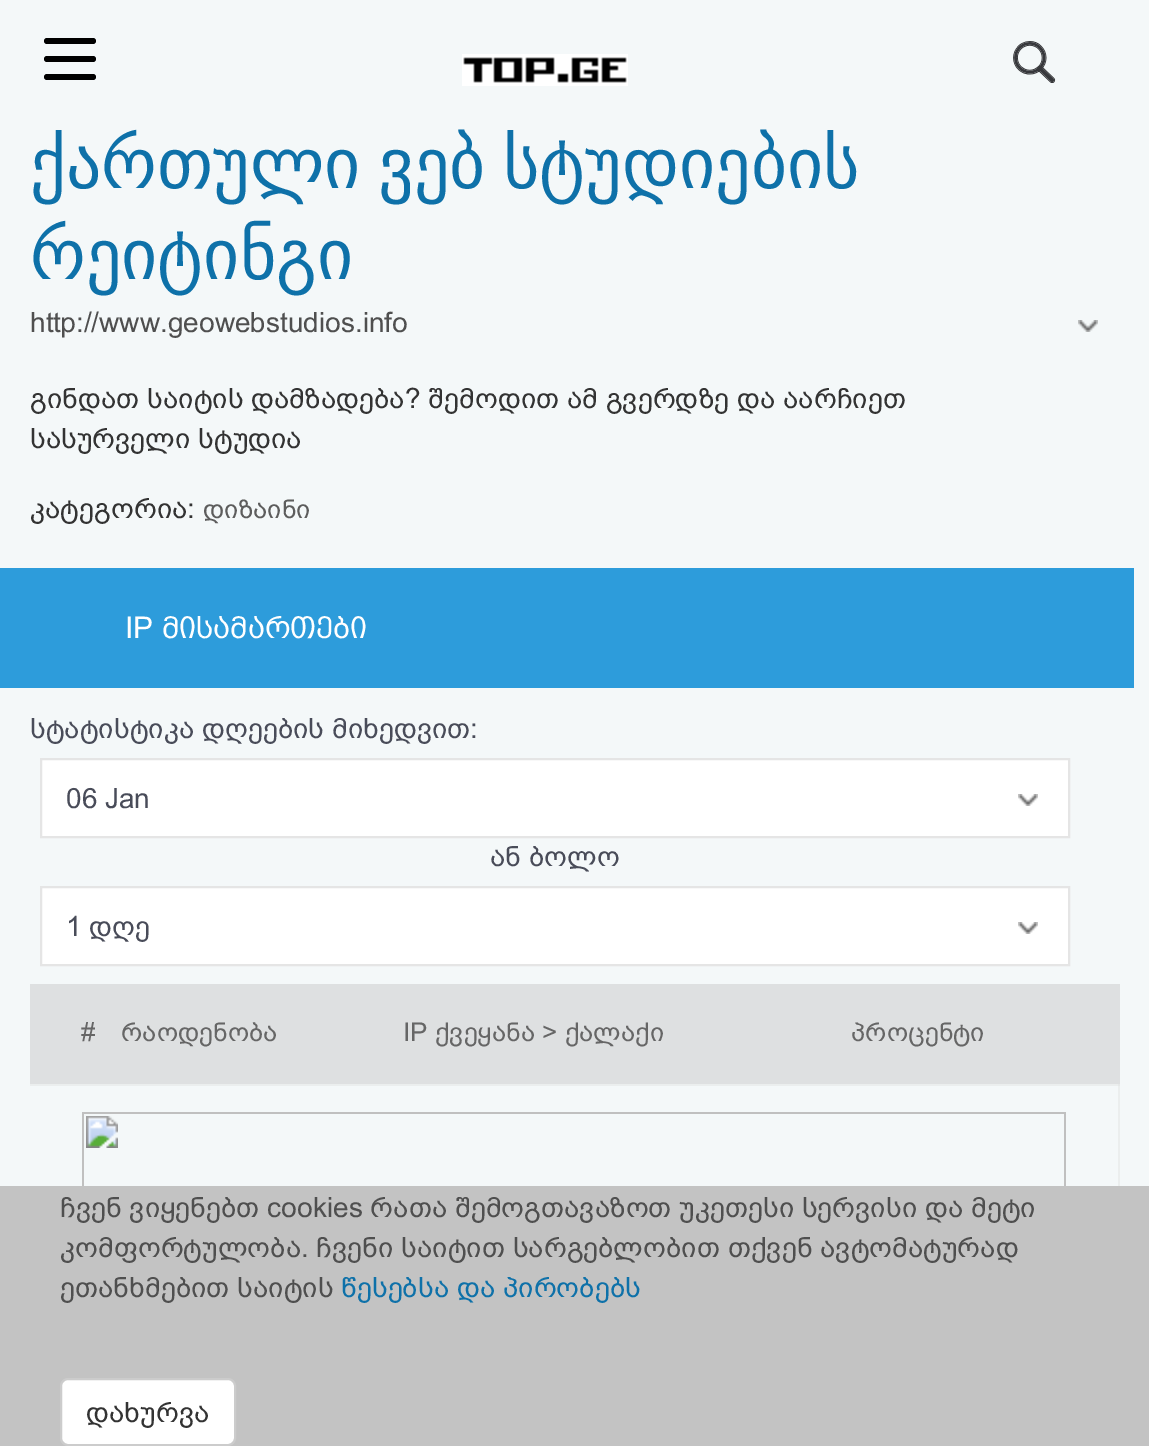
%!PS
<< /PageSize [1149 1446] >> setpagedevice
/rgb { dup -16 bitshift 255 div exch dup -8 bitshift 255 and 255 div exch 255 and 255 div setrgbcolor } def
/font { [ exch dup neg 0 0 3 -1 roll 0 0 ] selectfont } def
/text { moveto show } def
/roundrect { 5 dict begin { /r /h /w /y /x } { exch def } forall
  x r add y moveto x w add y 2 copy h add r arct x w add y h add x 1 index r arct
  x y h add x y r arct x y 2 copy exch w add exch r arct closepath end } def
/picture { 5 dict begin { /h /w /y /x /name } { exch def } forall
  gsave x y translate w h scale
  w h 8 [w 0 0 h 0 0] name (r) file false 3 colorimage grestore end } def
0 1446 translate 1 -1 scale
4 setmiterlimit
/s1 { /DejaVuSans-Regular 70 font 16#0E71A9 rgb } def
/s2 { /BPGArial-Regular 28 font 16#4F4F4F rgb } def
/s3 { /BPGArial-Regular 28 font 16#333333 rgb } def
/s4 { /BPGArial-Regular 26 font 16#5D5D5D rgb } def
/s5 { /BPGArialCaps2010-Regular 30 font 16#FFFFFF rgb } def
/s6 { /BPGArial-Regular 28 font 16#494C59 rgb } def
/s7 { /BPGArial-Regular 26 font 16#666666 rgb } def
/s8 { /BPGArial-Regular 28 font 16#0E71A9 rgb } def
16#F4F8F9 rgb
0 0 1149 1446 rectfill
16#EBEEEE rgb
1118 1084 2 102 rectfill
16#000000 rgb
44 38 52 6 3 roundrect fill
44 56 52 6 3 roundrect fill
44 74 52 6 3 roundrect fill
(pic1.raw) 462 54 166 32 picture
(pic2.raw) 1013 41 43 42 picture
(pic3.raw) 1078 320 20 12 picture
/DejaVuSans-Regular 70 font
16#0E71A9 rgb
30 188 moveto -5 0 32 (ქართული ვებ სტუდიების) widthshow
(რეიტინგი) 30 279 text
s2
(http://www.geowebstudios.info) 30 332 text
s3
(გინდათ საიტის დამზადება? შემოდით ამ გვერდზე და აარჩიეთ) 30 408 text
(სასურველი სტუდია) 30 448 text
(კატეგორია:) 30 518 text
s4
(დიზაინი) 203 518 text
16#2D9CDB rgb
0 568 1134 120 rectfill
s5
(IP მისამართები) 125 638 text
s6
(სტატისტიკა დღეების მიხედვით:) 30 738 text
16#FFFFFF rgb
41 759 moveto 1069 759 lineto 1069 837 lineto 41 837 lineto closepath gsave fill grestore
16#E5E5E5 rgb
2 setlinewidth
stroke
s6
(06 Jan) 66 808 text
(pic4.raw) 1018 794 20 12 picture
(ან ბოლო) 490 866 text
16#FFFFFF rgb
41 887 moveto 1069 887 lineto 1069 965 lineto 41 965 lineto closepath gsave fill grestore
16#E5E5E5 rgb
stroke
s6
(1 დღე) 66 936 text
(pic4.raw) 1018 922 20 12 picture
16#DEE0E1 rgb
30 984 1090 100 rectfill
s7
(#) 81 1041 text
(რაოდენობა) 121 1041 text
(IP ქვეყანა > ქალაქი) 403 1041 text
(პროცენტი) 851 1041 text
16#EBEEEE rgb
30 1084 1090 2 rectfill
16#E6E8E8 rgb
1118 1084 2 2 rectfill
(pic5.raw) 82 1112 984 74 picture
16#C3C3C3 rgb
0 1186 1149 260 rectfill
s2
(ჩვენ ვიყენებთ cookies რათა შემოგთავაზოთ უკეთესი სერვისი და მეტი) 60 1217 text
(კომფორტულობა. ჩვენი საიტით სარგებლობით თქვენ ავტომატურად) 60 1257 text
(ეთანხმებით საიტის) 60 1297 text
s8
(წესებსა და პირობებს) 341 1297 text
16#FFFFFF rgb
61 1379 174 66 7 roundrect gsave fill grestore
16#CCCCCC rgb
stroke
s3
(დახურვა) 86 1422 text
showpage
